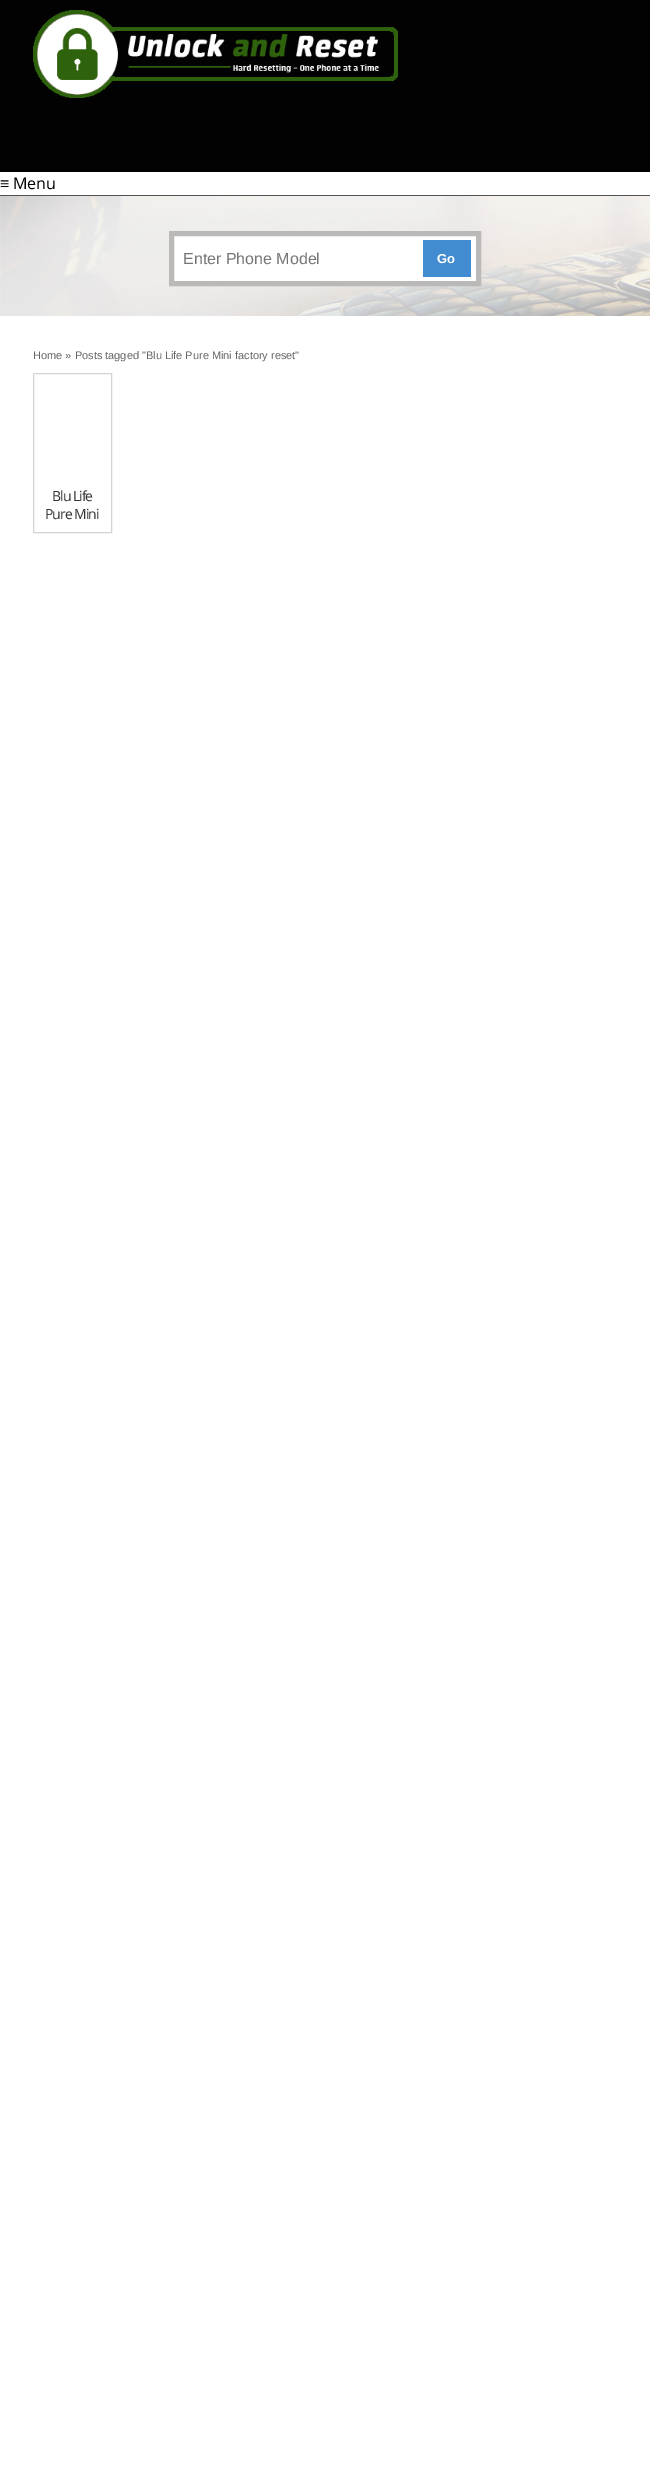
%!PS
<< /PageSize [650 2473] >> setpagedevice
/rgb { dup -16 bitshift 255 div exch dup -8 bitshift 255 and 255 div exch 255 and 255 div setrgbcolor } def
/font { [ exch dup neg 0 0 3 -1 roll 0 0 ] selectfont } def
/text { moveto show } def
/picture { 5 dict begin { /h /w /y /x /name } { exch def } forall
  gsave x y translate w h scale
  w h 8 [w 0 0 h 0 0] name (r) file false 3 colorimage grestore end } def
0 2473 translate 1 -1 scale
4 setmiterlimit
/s1 { /LiberationSans-Regular 16 font 16#000200 rgb } def
/s2 { /OpenSans-Regular 16 font 16#000200 rgb } def
/s3 { /LiberationSans-Regular 16 font 16#757575 rgb } def
/s4 { /LiberationSans-Bold 13 font 16#FFFFFF rgb } def
/s5 { /LiberationSans-Regular 11 font 16#666565 rgb } def
16#FFFFFF rgb
0 0 650 2473 rectfill
16#020202 rgb
0 0 650 172 rectfill
(pic1.raw) 33 10 365 88 picture
s1
(≡) 0 189 text
s2
(Menu) 13 189 text
16#515151 rgb
0 195 650 1 rectfill
16#F4F3F3 rgb
0 196 650 120 rectfill
(pic2.raw) 0 196 650 120 picture
16#FFFFFF rgb
171.5 233.5 moveto 478.5 233.5 lineto 478.5 283.5 lineto 171.5 283.5 lineto closepath gsave fill grestore
16#BBB8B8 rgb
5 setlinewidth
stroke
s3
(Enter Phone Model) 183 264 text
16#418CD1 rgb
423 240 48 37 rectfill
s4
(Go) 437 263 text
s5
(Home » Posts tagged "Blu Life Pure Mini factory reset") 33 359 text
16#D4D4D4 rgb
1 setlinewidth
33.5 373.5 78 159 rectstroke
/OpenSans-Regular 14 font
16#333333 rgb
52 501 moveto -1 0 (Blu Life) ashow
45 519 moveto -1 0 (Pure Mini) ashow
showpage
